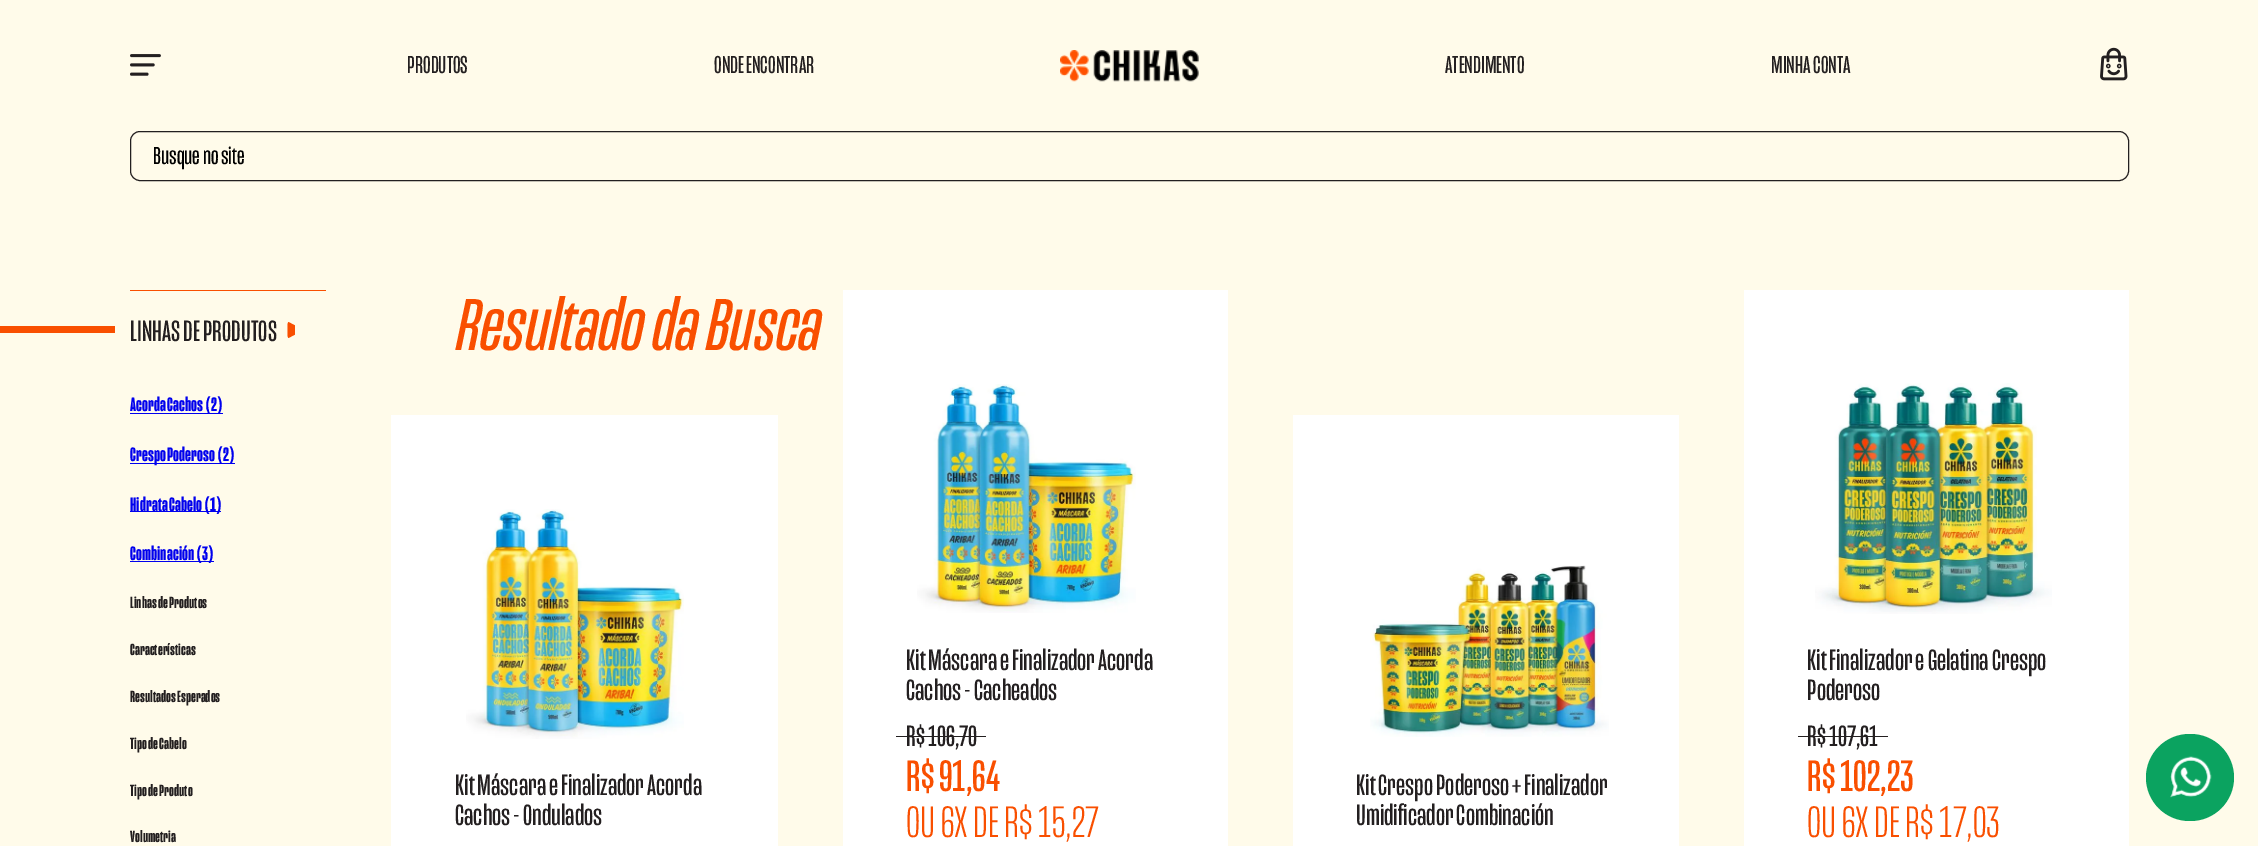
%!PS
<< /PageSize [2258 846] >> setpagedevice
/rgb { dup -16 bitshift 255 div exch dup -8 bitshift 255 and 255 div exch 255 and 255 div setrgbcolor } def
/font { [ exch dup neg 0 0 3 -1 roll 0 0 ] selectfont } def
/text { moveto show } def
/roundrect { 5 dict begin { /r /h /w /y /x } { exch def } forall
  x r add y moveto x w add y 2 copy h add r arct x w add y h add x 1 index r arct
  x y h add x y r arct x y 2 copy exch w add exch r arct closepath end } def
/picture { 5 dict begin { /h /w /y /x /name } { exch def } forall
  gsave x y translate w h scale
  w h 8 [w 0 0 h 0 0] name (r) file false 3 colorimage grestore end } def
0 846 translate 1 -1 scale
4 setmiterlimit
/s1 { /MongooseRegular-Regular 25 font 16#231F20 rgb } def
/s2 { /MongooseRegular-Regular 25 font 16#000000 rgb } def
/s3 { /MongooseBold-Bold 20 font 16#0000EE rgb } def
/s4 { /MongooseBold-Bold 16.5 font 16#231F20 rgb } def
/s5 { /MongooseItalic-Italic 75 font 16#F94F00 rgb } def
/s6 { /MongooseRegular-Regular 30 font 16#231F20 rgb } def
/s7 { /MongooseRegular-Regular 45 font 16#F94F00 rgb } def
/s8 { /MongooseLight-Light 45 font 16#F94F00 rgb } def
16#FFFBEA rgb
0 0 2258 846 rectfill
(pic1.raw) 130 54 31 22 picture
s1
(PRODUTOS) 407 73 text
(ONDE ENCONTRAR) 714 73 text
(pic2.raw) 1060 50 139 32 picture
(ATENDIMENTO) 1445 73 text
(MINHA CONTA) 1771 73 text
(pic3.raw) 2100 47 28 34 picture
130.5 131.5 1998 49 9.5 roundrect stroke
s2
(Busque no site) 153 164 text
16#F94F00 rgb
130 290 196 1 rectfill
0 326 115 7 rectfill
/MongooseRegular-Regular 30 font
16#231F20 rgb
130 341 moveto 0.1 0 (LINHAS DE PRODUTOS) ashow
16#F94F00 rgb
287.5 325 moveto 287.5 335 lineto 287.5 336 288 337.5 288.5 338 curveto 295 334.5 lineto 295 325.5 lineto 288.5 322 lineto 288 322.5 287.5 324 287.5 325 curveto closepath fill
16#0000EE rgb
130 413 93 1 rectfill
s3
(Acorda Cachos \(2\)) 130 411 text
130 463 105 1 rectfill
(Crespo Poderoso \(2\)) 130 461 text
130 511 91 1 rectfill
(Hidrata Cabelo \(1\)) 130 511 text
130 561 84 1 rectfill
(Combinación \(3\)) 130 560 text
s4
(Linhas de Produtos) 130 608 text
(Características) 130 655 text
(Resultados Esperados) 130 702 text
(Tipo de Cabelo) 130 749 text
(Tipo de Produto) 130 796 text
(Volumetria) 130 842 text
s5
(Resultado da Busca) 458 350 text
16#FFFFFF rgb
391 415 387 431 rectfill
(pic4.raw) 466 509 218 230 picture
s6
(Kit Máscara e Finalizador Acorda) 455 795 text
(Cachos - Ondulados) 455 825 text
16#FFFFFF rgb
843 290 385 556 rectfill
(pic5.raw) 917 384 219 229 picture
s6
(Kit Máscara e Finalizador Acorda) 906 670 text
(Cachos - Cacheados) 906 700 text
(R$ 106,70) 906 746 text
896 736 90 1 rectfill
s7
(R$ 91,64) 906 791 text
s8
(OU 6X DE R$ 15,27) 906 837 text
16#FFFFFF rgb
1293 415 386 431 rectfill
(pic6.raw) 1370 565 239 172 picture
s6
(Kit Crespo Poderoso + Finalizador) 1356 795 text
(Umidificador Combinación) 1356 825 text
16#FFFFFF rgb
1744 290 385 556 rectfill
(pic7.raw) 1815 383 237 231 picture
gsave
1808 645 257 70 rectclip
s6
(Kit Finalizador e Gelatina Crespo) 1807 670 text
(Poderoso) 1807 700 text
grestore
s6
(R$ 107,61) 1807 746 text
1798 736 90 1 rectfill
s7
(R$ 102,23) 1807 791 text
s8
(OU 6X DE R$ 17,03) 1807 837 text
16#0BA360 rgb
2146 734 88 87 43.5 roundrect fill
(pic8.raw) 2170 756 42 42 picture
showpage
